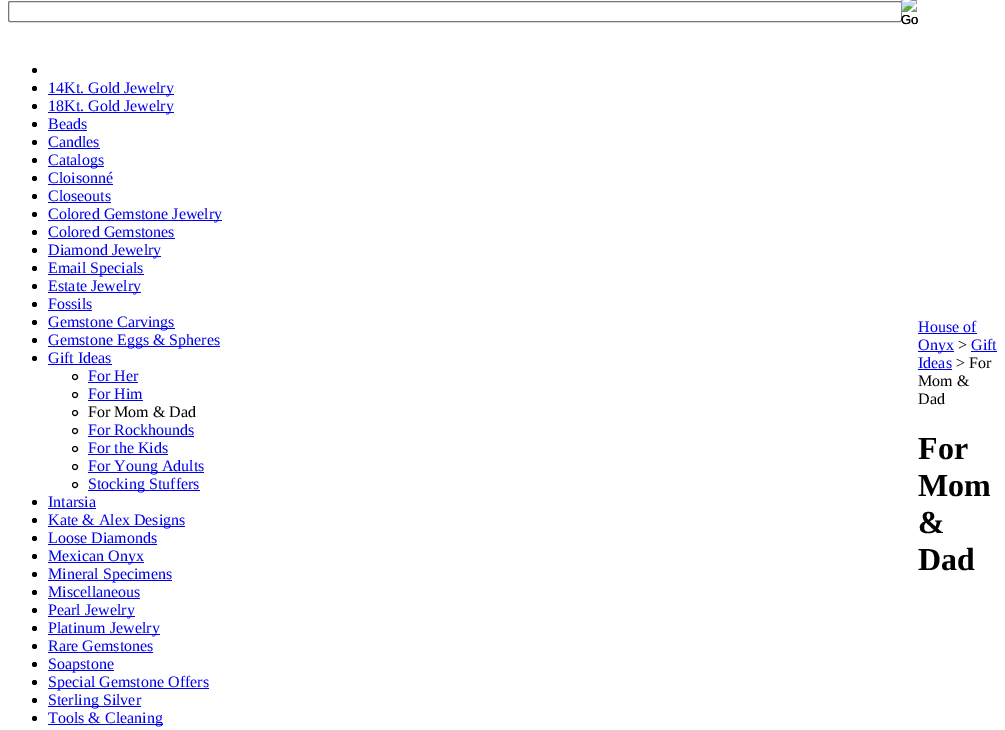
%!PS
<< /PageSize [1005 730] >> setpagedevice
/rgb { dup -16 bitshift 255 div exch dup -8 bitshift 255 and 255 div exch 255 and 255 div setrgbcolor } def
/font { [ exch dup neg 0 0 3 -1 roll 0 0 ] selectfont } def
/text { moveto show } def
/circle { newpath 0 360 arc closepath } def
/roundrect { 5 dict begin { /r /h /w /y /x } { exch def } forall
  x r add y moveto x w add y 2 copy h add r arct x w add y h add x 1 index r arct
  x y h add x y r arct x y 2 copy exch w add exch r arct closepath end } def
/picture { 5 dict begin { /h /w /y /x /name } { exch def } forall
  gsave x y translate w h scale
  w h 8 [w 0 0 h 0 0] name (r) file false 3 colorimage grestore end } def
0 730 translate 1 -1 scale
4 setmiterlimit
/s1 { /LiberationSans-Regular 13 font 16#000000 rgb } def
/s2 { /LiberationSerif-Regular 16 font 16#0000EE rgb } def
/s3 { /LiberationSerif-Regular 16 font 16#000000 rgb } def
/s4 { /LiberationSerif-Bold 32 font 16#000000 rgb } def
16#FFFFFF rgb
0 0 1005 730 rectfill
16#767676 rgb
8.5 1.5 893 20 1.5 roundrect stroke
(pic1.raw) 901 0 17 24 picture
s1
(Go) 901 24 text
34.5 70.5 2.5 circle fill
34.5 88.5 2.5 circle fill
16#0000EE rgb
48 94 126 1 rectfill
s2
(14Kt. Gold Jewelry) 48 93 text
16#000000 rgb
34.5 106.5 2.5 circle fill
16#0000EE rgb
48 112 126 1 rectfill
(18Kt. Gold Jewelry) 48 111 text
16#000000 rgb
34.5 124.5 2.5 circle fill
s2
(Beads) 48 129 text
48 130 39 1 rectfill
16#000000 rgb
34.5 142.5 2.5 circle fill
s2
(Candles) 48 147 text
48 148 52 1 rectfill
16#000000 rgb
34.5 160.5 2.5 circle fill
16#0000EE rgb
48 166 56 1 rectfill
(Catalogs) 48 165 text
16#000000 rgb
34.5 178.5 2.5 circle fill
s2
(Cloisonné) 48 183 text
48 184 65 1 rectfill
16#000000 rgb
34.5 196.5 2.5 circle fill
s2
(Closeouts) 48 201 text
48 202 63 1 rectfill
16#000000 rgb
34.5 214.5 2.5 circle fill
16#0000EE rgb
48 220 174 1 rectfill
(Colored Gemstone Jewelry) 48 219 text
16#000000 rgb
34.5 232.5 2.5 circle fill
s2
(Colored Gemstones) 48 237 text
48 238 127 1 rectfill
16#000000 rgb
34.5 250.5 2.5 circle fill
16#0000EE rgb
48 256 113 1 rectfill
(Diamond Jewelry) 48 255 text
16#000000 rgb
34.5 268.5 2.5 circle fill
16#0000EE rgb
48 274 96 1 rectfill
(Email Specials) 48 273 text
16#000000 rgb
34.5 286.5 2.5 circle fill
16#0000EE rgb
48 292 93 1 rectfill
(Estate Jewelry) 48 291 text
16#000000 rgb
34.5 304.5 2.5 circle fill
s2
(Fossils) 48 309 text
48 310 44 1 rectfill
16#000000 rgb
34.5 322.5 2.5 circle fill
16#0000EE rgb
48 328 127 1 rectfill
(Gemstone Carvings) 48 327 text
16#000000 rgb
34.5 340.5 2.5 circle fill
16#0000EE rgb
48 346 172 1 rectfill
(Gemstone Eggs & Spheres) 48 345 text
16#000000 rgb
34.5 358.5 2.5 circle fill
s2
(Gift Ideas) 48 363 text
48 364 64 1 rectfill
16#000000 rgb
75 377 2.5 circle stroke
s2
(For Her) 88 381 text
88 382 50 1 rectfill
16#000000 rgb
75 395 2.5 circle stroke
s2
(For Him) 88 399 text
88 400 55 1 rectfill
16#000000 rgb
75 413 2.5 circle stroke
(For Mom & Dad) 88 417 text
75 431 2.5 circle stroke
s2
(For Rockhounds) 88 435 text
88 436 106 1 rectfill
16#000000 rgb
75 449 2.5 circle stroke
s2
(For the Kids) 88 453 text
88 454 80 1 rectfill
16#000000 rgb
75 467 2.5 circle stroke
16#0000EE rgb
88 472 116 1 rectfill
(For Young Adults) 88 471 text
16#000000 rgb
75 485 2.5 circle stroke
16#0000EE rgb
88 490 112 1 rectfill
(Stocking Stuffers) 88 489 text
16#000000 rgb
34.5 502.5 2.5 circle fill
s2
(Intarsia) 48 507 text
48 508 48 1 rectfill
16#000000 rgb
34.5 520.5 2.5 circle fill
16#0000EE rgb
48 526 137 1 rectfill
(Kate & Alex Designs) 48 525 text
16#000000 rgb
34.5 538.5 2.5 circle fill
s2
(Loose Diamonds) 48 543 text
48 544 109 1 rectfill
16#000000 rgb
34.5 556.5 2.5 circle fill
16#0000EE rgb
48 562 96 1 rectfill
(Mexican Onyx) 48 561 text
16#000000 rgb
34.5 574.5 2.5 circle fill
16#0000EE rgb
48 580 124 1 rectfill
(Mineral Specimens) 48 579 text
16#000000 rgb
34.5 592.5 2.5 circle fill
s2
(Miscellaneous) 48 597 text
48 598 92 1 rectfill
16#000000 rgb
34.5 610.5 2.5 circle fill
16#0000EE rgb
48 616 87 1 rectfill
(Pearl Jewelry) 48 615 text
16#000000 rgb
34.5 628.5 2.5 circle fill
16#0000EE rgb
48 634 112 1 rectfill
(Platinum Jewelry) 48 633 text
16#000000 rgb
34.5 646.5 2.5 circle fill
s2
(Rare Gemstones) 48 651 text
48 652 105 1 rectfill
16#000000 rgb
34.5 664.5 2.5 circle fill
16#0000EE rgb
48 670 66 1 rectfill
(Soapstone) 48 669 text
16#000000 rgb
34.5 682.5 2.5 circle fill
16#0000EE rgb
48 688 161 1 rectfill
(Special Gemstone Offers) 48 687 text
16#000000 rgb
34.5 700.5 2.5 circle fill
16#0000EE rgb
48 706 93 1 rectfill
(Sterling Silver) 48 705 text
16#000000 rgb
34.5 718.5 2.5 circle fill
16#0000EE rgb
48 724 115 1 rectfill
(Tools & Cleaning) 48 723 text
(House of) 918 332 text
918 333 59 1 rectfill
918 351 36 1 rectfill
(Onyx) 918 350 text
s3
(>) 958 350 text
s2
(Gift) 971 350 text
971 351 26 1 rectfill
(Ideas) 918 368 text
918 369 34 1 rectfill
s3
(> For) 956 368 text
(Mom &) 918 386 text
(Dad) 918 404 text
s4
(For) 918 459 text
(Mom) 918 496 text
(&) 918 533 text
(Dad) 918 570 text
showpage
